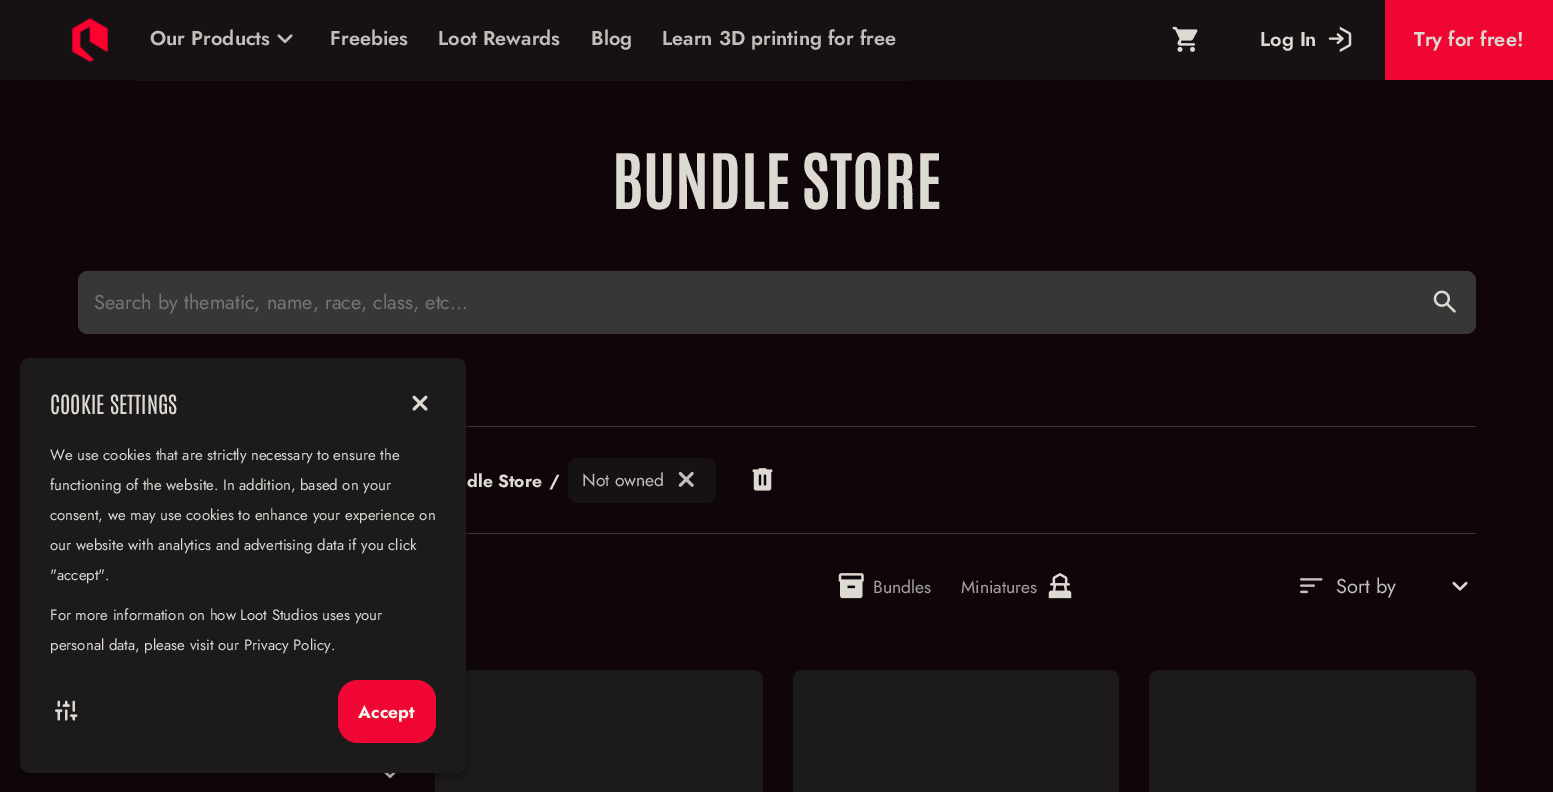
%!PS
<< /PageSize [1553 792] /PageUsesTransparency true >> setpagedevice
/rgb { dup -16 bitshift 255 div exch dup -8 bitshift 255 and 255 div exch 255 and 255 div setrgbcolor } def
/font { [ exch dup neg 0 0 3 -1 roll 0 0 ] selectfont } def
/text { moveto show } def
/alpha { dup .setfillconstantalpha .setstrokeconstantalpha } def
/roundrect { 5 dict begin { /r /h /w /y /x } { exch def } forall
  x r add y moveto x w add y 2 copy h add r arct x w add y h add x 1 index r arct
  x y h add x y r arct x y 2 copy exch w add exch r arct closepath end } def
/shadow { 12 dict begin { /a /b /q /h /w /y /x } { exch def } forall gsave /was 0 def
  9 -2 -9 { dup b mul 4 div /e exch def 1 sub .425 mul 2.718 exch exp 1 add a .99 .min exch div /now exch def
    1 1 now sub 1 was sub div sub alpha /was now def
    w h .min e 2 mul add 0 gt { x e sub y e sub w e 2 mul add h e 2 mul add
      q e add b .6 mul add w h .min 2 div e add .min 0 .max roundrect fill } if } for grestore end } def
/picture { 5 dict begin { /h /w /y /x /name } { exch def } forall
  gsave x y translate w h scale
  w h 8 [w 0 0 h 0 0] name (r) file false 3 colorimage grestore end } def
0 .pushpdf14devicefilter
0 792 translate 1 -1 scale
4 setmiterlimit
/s1 { /Jost-SemiBold 20 font 16#C0BFBA rgb } def
/s2 { /Jost-SemiBold 20 font 16#DCDAD3 rgb } def
/s3 { /Antonio-Regular 22.5 font 16#DCDAD3 rgb } def
/s4 { /Jost-Regular 15 font 16#DCDAD3 rgb } def
/s5 { /Jost-Bold 17.5 font 16#F4F2EA rgb } def
/s6 { /Antonio-Bold 65 font 16#DCDAD3 rgb } def
/s7 { /Jost-Regular 20 font 16#757575 rgb } def
/s8 { /Jost-Bold 17.5 font 16#DCDAD3 rgb } def
/s9 { /Jost-Regular 17.5 font 16#C0BFBA rgb } def
/s10 { /Jost-Regular 17.5 font 16#A2A19D rgb } def
/s11 { /Jost-Regular 20 font 16#C0BFBA rgb } def
16#10060A rgb
0 0 1553 792 rectfill
16#161214 rgb
0 0 1385 80 rectfill
(pic1.raw) 71 17 38 46 picture
135 80 776 1 rectfill
s1
(Our Products) 150 45 text
(pic2.raw) 277 34 16 10 picture
(Freebies) 330 45 text
(Loot Rewards) 438 45 text
(Blog) 591 45 text
(Learn 3D printing for free) 662 45 text
(pic3.raw) 1172 26 26 26 picture
s2
(Log In) 1260 46 text
(pic4.raw) 1328 26 24 26 picture
16#EF0633 rgb
1385 0 168 80 rectfill
s2
(Try for free!) 1414 46 text
16#383737 rgb
466 426 1010 1 rectfill
466 533 1010 1 rectfill
16#1C1A1B rgb
435 670 328 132 10 roundrect fill
(pic14.raw) 384 773 12 6 picture
16#000000 rgb
18 360 451 420 13 2.5 0.25 shadow
16#1C1A1B rgb
20 358 446 415 10 roundrect fill
s3
(COOKIE SETTINGS) 50 414 text
(pic5.raw) 412 395 16 16 picture
s4
(We use cookies that are strictly necessary to ensure the) 50 460 text
(functioning of the website. In addition, based on your) 50 490 text
(consent, we may use cookies to enhance your experience on) 50 520 text
(our website with analytics and advertising data if you click) 50 550 text
("accept".) 50 580 text
(For more information on how Loot Studios uses your) 50 620 text
(personal data, please visit our Privacy Policy.) 50 650 text
(pic6.raw) 55 700 23 21 picture
16#EF0633 rgb
338 680 98 63 20 roundrect fill
s5
(Accept) 358 718 text
s6
(BUNDLE STORE) 612 209 text
16#383737 rgb
78 271 1398 63 10 roundrect fill
s7
(Search by thematic, name, race, class, etc...) 94 309 text
(pic7.raw) 1433 290 23 23 picture
s8
(dle Store) 467 487 text
(/) 549 487 text
16#161214 rgb
568 458 148 45 10 roundrect fill
s9
(Not owned) 582 486 text
(pic8.raw) 678 471 16 16 picture
(pic9.raw) 752 468 21 23 picture
(pic10.raw) 838 573 26 26 picture
s10
(Bundles) 873 593 text
(Miniatures) 961 593 text
(pic11.raw) 1048 573 24 26 picture
(pic12.raw) 1300 578 23 16 picture
s11
(Sort by) 1336 593 text
(pic13.raw) 1452 581 16 10 picture
16#1C1A1B rgb
793 670 326 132 10 roundrect fill
1149 670 327 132 10 roundrect fill
.poppdf14devicefilter showpage
